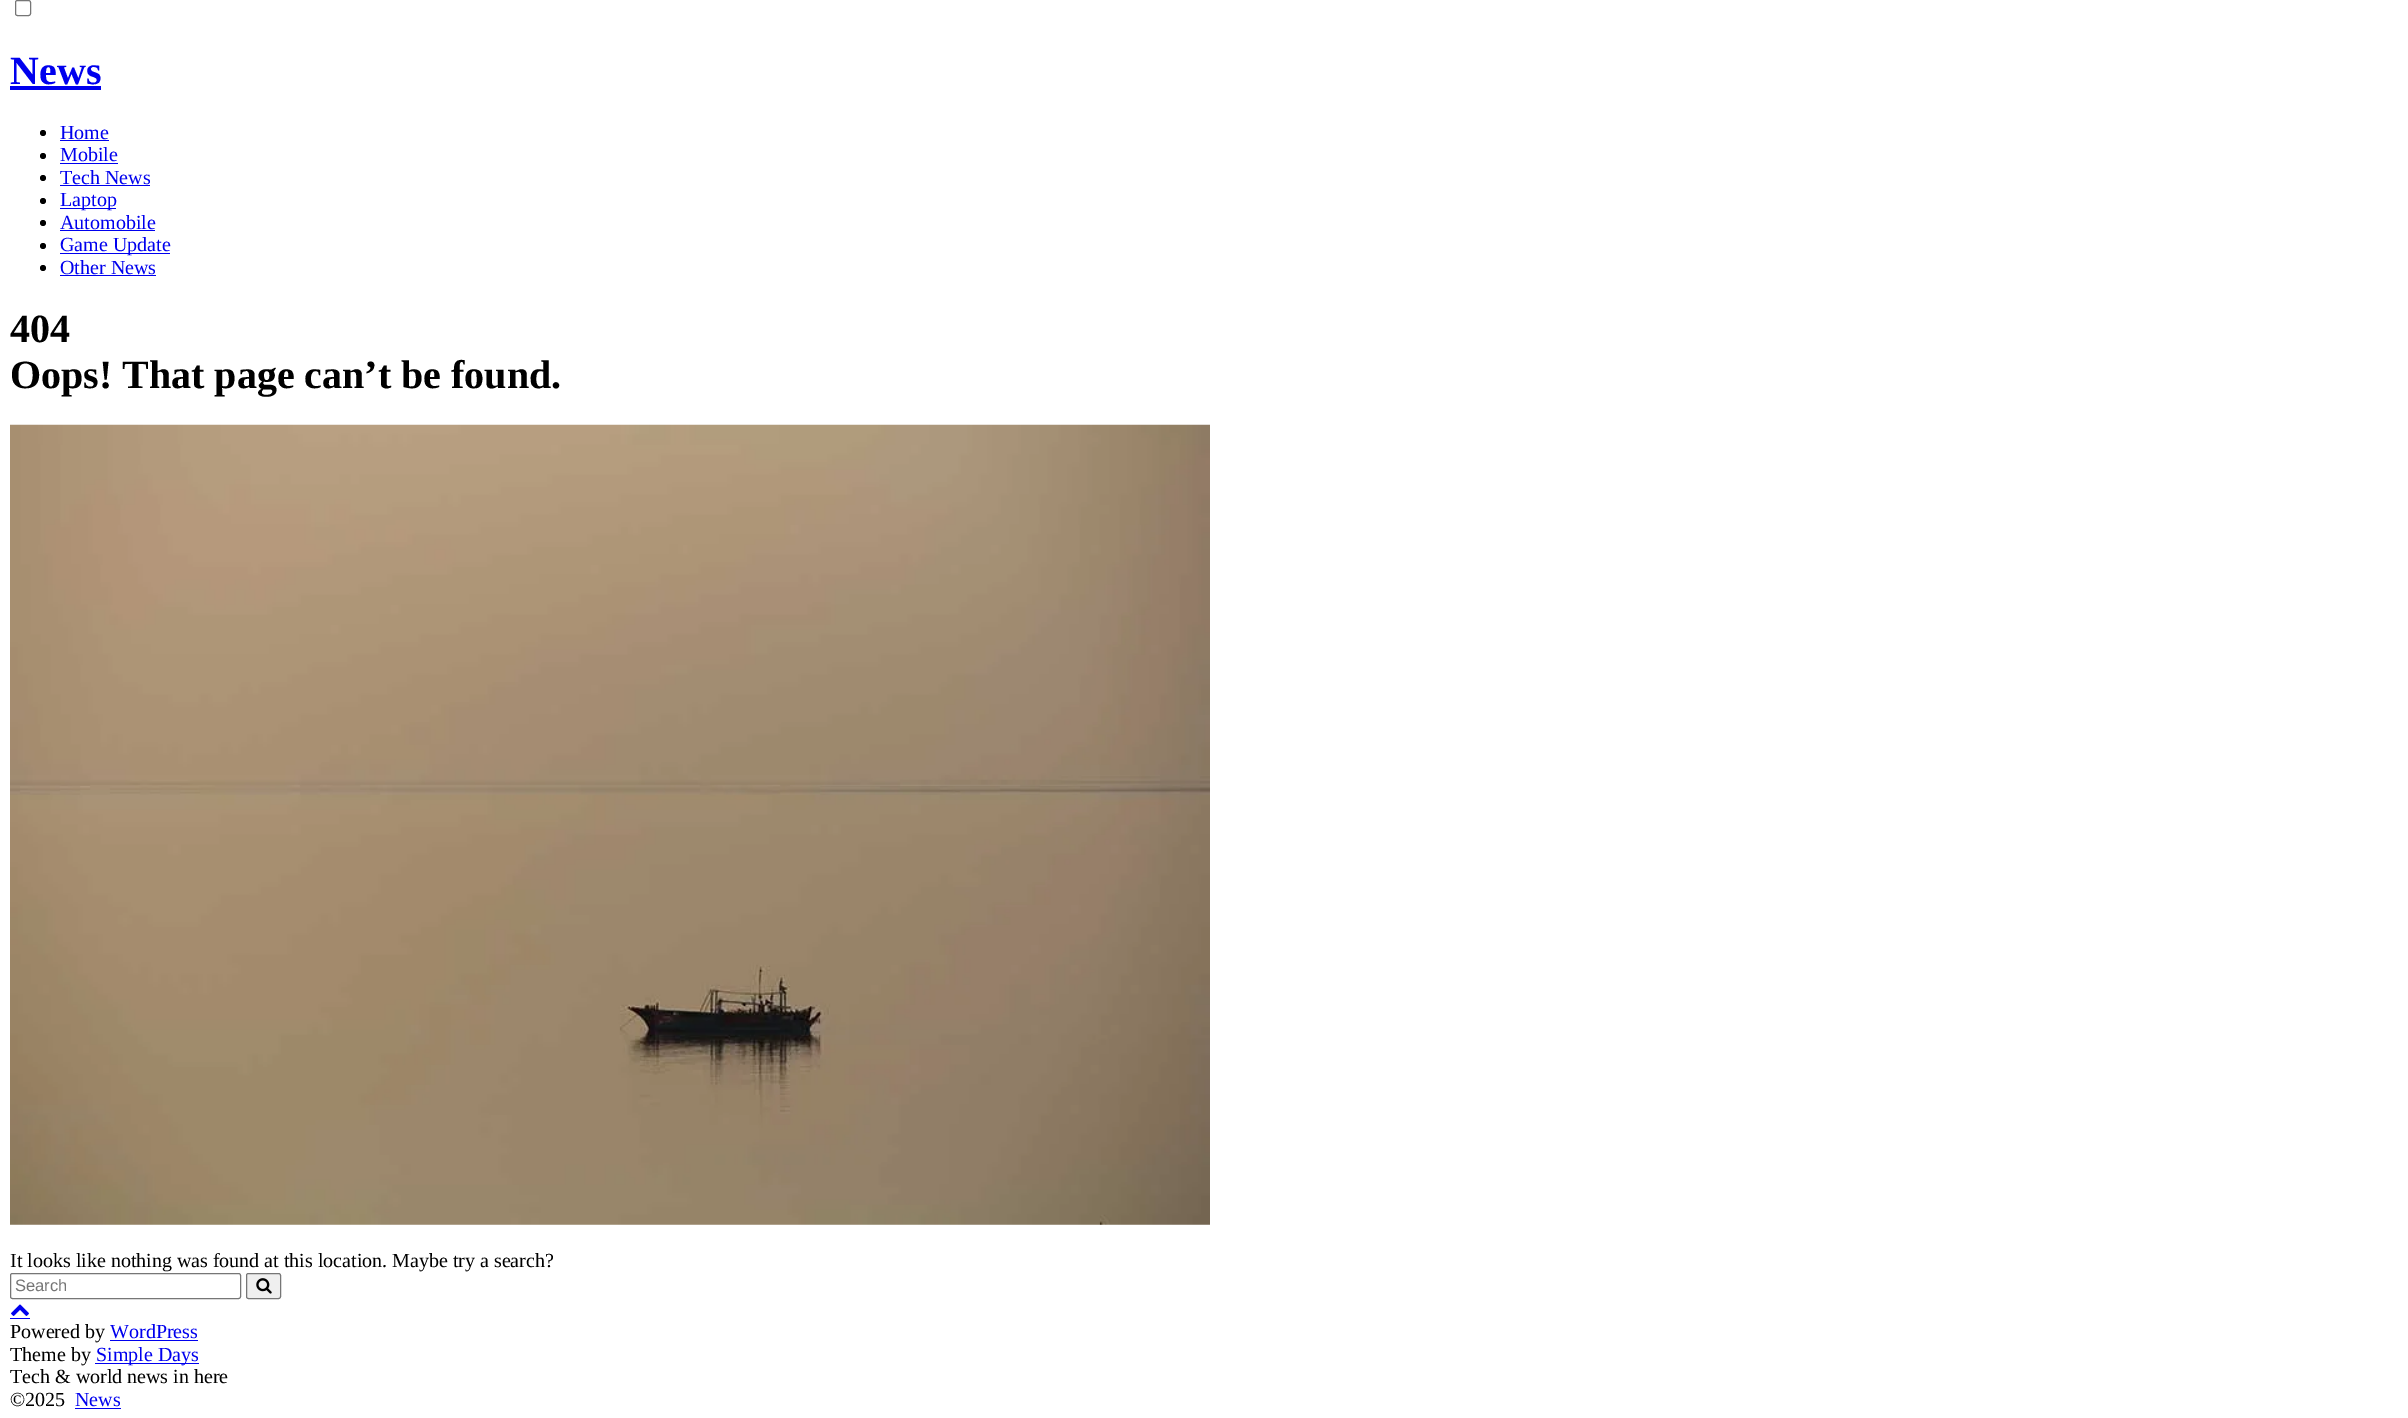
%!PS
<< /PageSize [2408 1418] >> setpagedevice
/rgb { dup -16 bitshift 255 div exch dup -8 bitshift 255 and 255 div exch 255 and 255 div setrgbcolor } def
/font { [ exch dup neg 0 0 3 -1 roll 0 0 ] selectfont } def
/text { moveto show } def
/circle { newpath 0 360 arc closepath } def
/roundrect { 5 dict begin { /r /h /w /y /x } { exch def } forall
  x r add y moveto x w add y 2 copy h add r arct x w add y h add x 1 index r arct
  x y h add x y r arct x y 2 copy exch w add exch r arct closepath end } def
/picture { 5 dict begin { /h /w /y /x /name } { exch def } forall
  gsave x y translate w h scale
  w h 8 [w 0 0 h 0 0] name (r) file false 3 colorimage grestore end } def
0 1418 translate 1 -1 scale
4 setmiterlimit
/s1 { /LiberationSerif-Bold 40 font 16#0000EE rgb } def
/s2 { /LiberationSerif-Regular 20 font 16#0000EE rgb } def
/s3 { /LiberationSerif-Bold 40 font 16#000000 rgb } def
/s4 { /LiberationSerif-Regular 20 font 16#000000 rgb } def
/s5 { /LiberationSans-Regular 16.5 font 16#757575 rgb } def
16#FFFFFF rgb
0 0 2408 1418 rectfill
16#767676 rgb
15.5 0.5 15 15 2 roundrect stroke
s1
(News) 10 84 text
10 86 91 4 rectfill
16#000000 rgb
43 133 3 circle fill
s2
(Home) 60 139 text
60 140 49 1 rectfill
16#000000 rgb
43 156 3 circle fill
s2
(Mobile) 60 161 text
60 163 58 1 rectfill
16#000000 rgb
43 178 3 circle fill
s2
(Tech News) 60 184 text
60 185 90 1 rectfill
16#000000 rgb
43 201 3 circle fill
16#0000EE rgb
60 208 56 1 rectfill
(Laptop) 60 206 text
16#000000 rgb
43 223 3 circle fill
s2
(Automobile) 60 229 text
60 230 95 1 rectfill
16#000000 rgb
43 246 3 circle fill
16#0000EE rgb
60 253 110 1 rectfill
(Game Update) 60 251 text
16#000000 rgb
43 268 3 circle fill
s2
(Other News) 60 274 text
60 275 96 1 rectfill
s3
(404) 10 342 text
(Oops! That page can’t be found.) 10 388 text
(pic1.raw) 10 424 1200 801 picture
s4
(It looks like nothing was found at this location. Maybe try a search?) 10 1267 text
16#767676 rgb
10.5 1273.5 230 25 2 roundrect stroke
s5
(Search) 15 1291 text
16#EFEFEF rgb
246.5 1273.5 34 25 2 roundrect gsave fill grestore
16#767676 rgb
stroke
(pic2.raw) 256 1278 16 16 picture
(pic3.raw) 11 1304 18 12 picture
16#0000EE rgb
10 1318 20 1 rectfill
s4
(Powered by) 10 1338 text
s2
(WordPress) 110 1338 text
110 1340 88 1 rectfill
s4
(Theme by) 10 1361 text
16#0000EE rgb
95 1363 104 1 rectfill
(Simple Days) 96 1361 text
s4
(Tech & world news in here) 10 1383 text
(©2025) 10 1406 text
s2
(News) 75 1406 text
75 1408 46 1 rectfill
showpage
